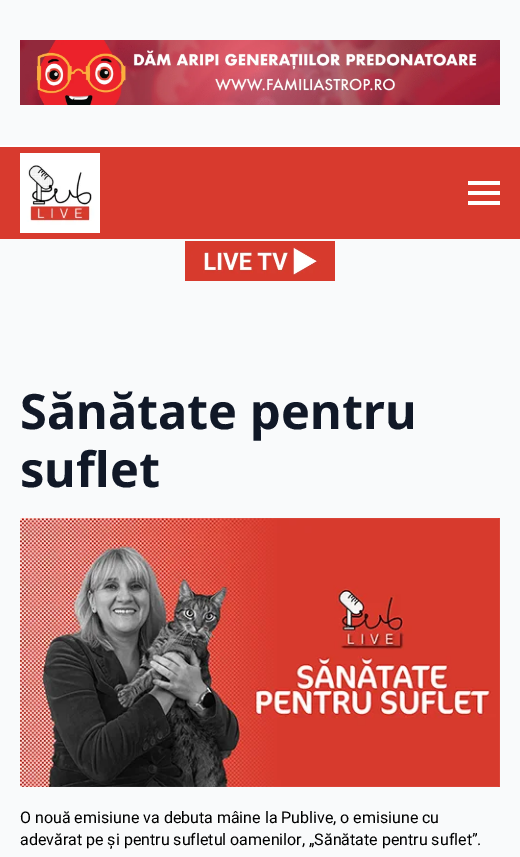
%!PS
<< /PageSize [520 857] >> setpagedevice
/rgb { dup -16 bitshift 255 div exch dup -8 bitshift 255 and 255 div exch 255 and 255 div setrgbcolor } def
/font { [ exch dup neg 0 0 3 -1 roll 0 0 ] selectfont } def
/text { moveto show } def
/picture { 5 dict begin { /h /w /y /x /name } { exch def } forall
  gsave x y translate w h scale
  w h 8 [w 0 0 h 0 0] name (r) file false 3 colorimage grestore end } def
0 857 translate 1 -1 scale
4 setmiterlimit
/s1 { /NotoSans-Bold 48.75 font 16#111827 rgb } def
/s2 { /Roboto-Regular 16 font 16#000000 rgb } def
16#F9FAFB rgb
0 0 520 857 rectfill
(pic1.raw) 20 40 480 65 picture
16#D83A2E rgb
0 147 520 92 rectfill
16#FFFFFF rgb
0 145 520 2 rectfill
(pic2.raw) 20 153 80 80 picture
468 191 32 4 rectfill
468 181 32 4 rectfill
468 201 32 4 rectfill
(pic3.raw) 185 241 150 40 picture
s1
(Sănătate pentru) 20 429 text
(suflet) 20 487 text
(pic4.raw) 20 518 480 269 picture
s2
(O nouă emisiune va debuta mâine la Publive, o emisiune cu) 20 823 text
(adevărat pe și pentru sufletul oamenilor, „Sănătate pentru suflet”.) 20 845 text
showpage
